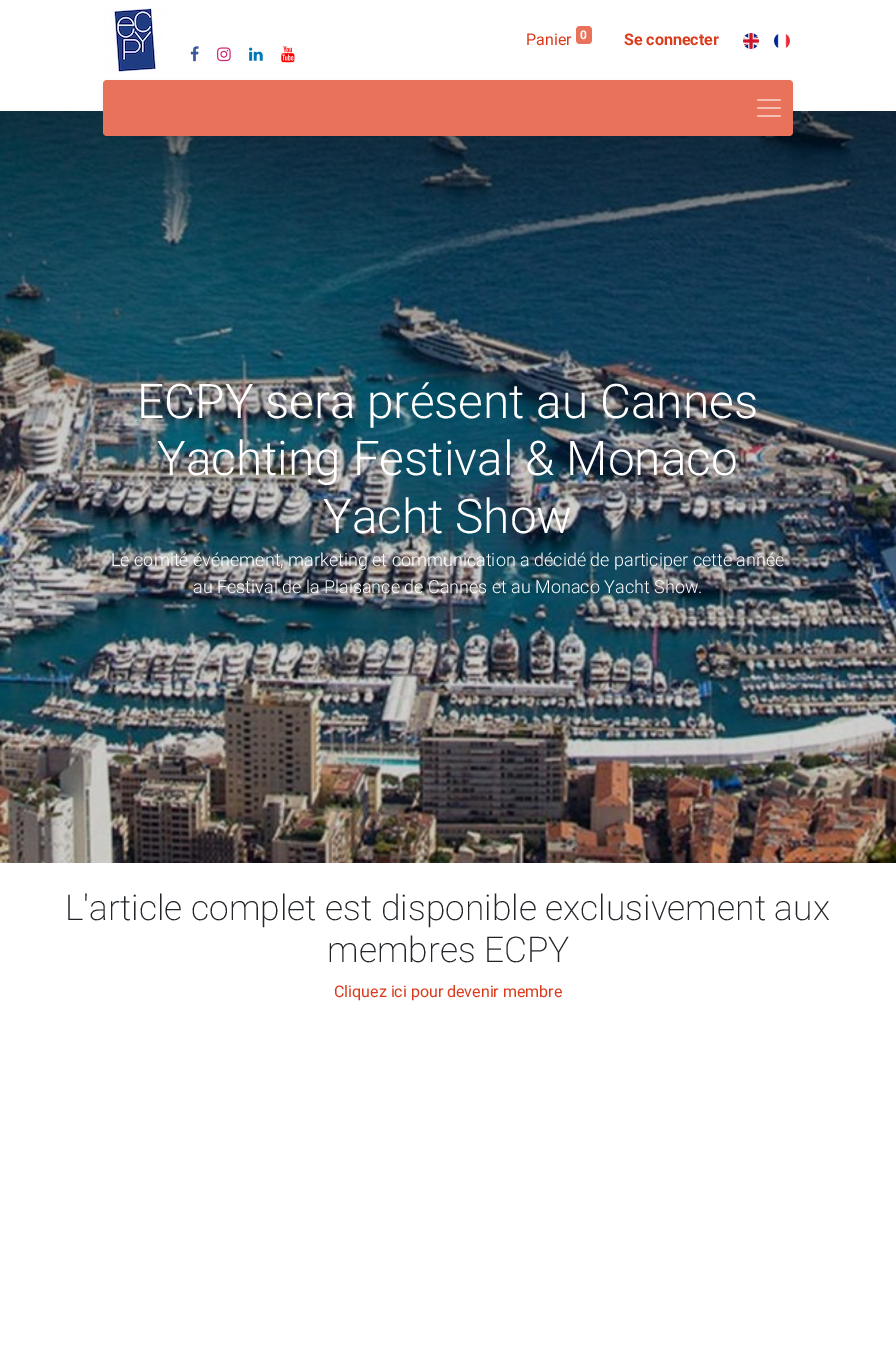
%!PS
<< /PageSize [896 1367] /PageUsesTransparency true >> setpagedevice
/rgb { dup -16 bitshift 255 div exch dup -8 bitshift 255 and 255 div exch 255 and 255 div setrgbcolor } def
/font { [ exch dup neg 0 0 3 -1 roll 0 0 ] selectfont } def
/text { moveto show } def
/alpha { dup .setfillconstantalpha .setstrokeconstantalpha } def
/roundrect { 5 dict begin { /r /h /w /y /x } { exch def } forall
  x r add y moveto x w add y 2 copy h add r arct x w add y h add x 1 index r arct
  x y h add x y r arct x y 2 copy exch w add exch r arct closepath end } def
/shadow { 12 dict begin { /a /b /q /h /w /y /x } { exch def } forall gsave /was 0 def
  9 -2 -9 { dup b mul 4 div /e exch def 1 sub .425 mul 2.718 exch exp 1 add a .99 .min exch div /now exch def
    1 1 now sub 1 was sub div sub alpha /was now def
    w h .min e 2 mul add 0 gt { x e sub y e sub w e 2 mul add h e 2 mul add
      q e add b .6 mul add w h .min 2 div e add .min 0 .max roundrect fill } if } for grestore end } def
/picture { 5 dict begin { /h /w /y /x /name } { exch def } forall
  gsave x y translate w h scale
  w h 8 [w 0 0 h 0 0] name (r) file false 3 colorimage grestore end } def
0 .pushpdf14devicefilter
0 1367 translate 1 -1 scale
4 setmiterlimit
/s1 { /Roboto-Regular 16 font 16#DA3C1D rgb } def
/s2 { /Roboto-Bold 12 font 16#FFFFFF rgb } def
/s3 { /Roboto-Bold 16 font 16#DA3C1D rgb } def
/s4 { /Roboto-Light 47.75 font 16#FFFFFF rgb } def
/s5 { /Roboto-Light 18 font 16#FFFFFF rgb } def
/s6 { /Roboto-ExtraLight 35.4 font 16#212529 rgb } def
16#FFFFFF rgb
0 0 896 1367 rectfill
(pic1.raw) 103 8 64 64 picture
(pic2.raw) 190 46 9 16 picture
(pic3.raw) 217 47 14 15 picture
(pic4.raw) 249 47 14 14 picture
(pic5.raw) 281 46 14 17 picture
s1
(Panier) 526 45 text
16#E9725B rgb
576 26 16 18 4 roundrect fill
s2
(0) 580 39 text
s3
(Se connecter) 624 45 text
(pic6.raw) 743 33 16 16 picture
(pic7.raw) 774 33 16 16 picture
(pic9.raw) 0 111 896 752 picture
16#000000 rgb
103 82 690 56 4 2 0.07 shadow
16#E9725B rgb
103 80 690 56 4 roundrect fill
(pic8.raw) 757 99 24 18 picture
s4
(ECPY sera présent au Cannes) 137 418 text
(Yachting Festival & Monaco) 157 475 text
(Yacht Show) 323 533 text
s5
(Le comité événement, marketing et communication a décidé de participer cette année) 111 566 text
(au Festival de la Plaisance de Cannes et au Monaco Yacht Show.) 193 593 text
s6
(L'article complet est disponible exclusivement aux) 65 920 text
(membres ECPY) 327 962 text
s1
(Cliquez ici pour devenir membre) 334 997 text
.poppdf14devicefilter showpage
